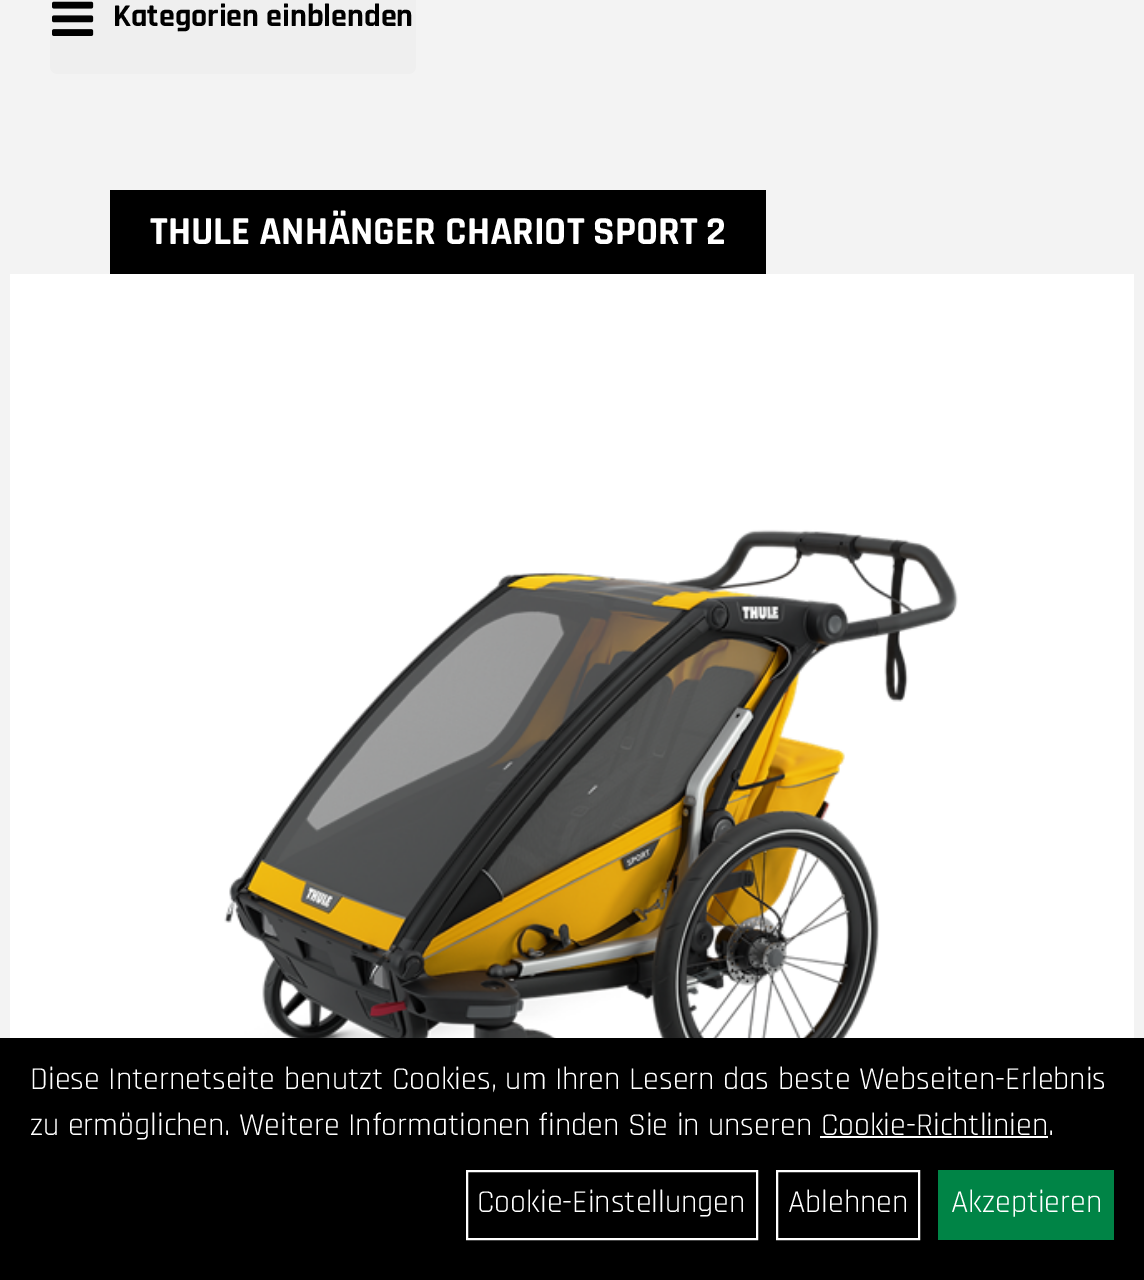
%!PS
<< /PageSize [1144 1280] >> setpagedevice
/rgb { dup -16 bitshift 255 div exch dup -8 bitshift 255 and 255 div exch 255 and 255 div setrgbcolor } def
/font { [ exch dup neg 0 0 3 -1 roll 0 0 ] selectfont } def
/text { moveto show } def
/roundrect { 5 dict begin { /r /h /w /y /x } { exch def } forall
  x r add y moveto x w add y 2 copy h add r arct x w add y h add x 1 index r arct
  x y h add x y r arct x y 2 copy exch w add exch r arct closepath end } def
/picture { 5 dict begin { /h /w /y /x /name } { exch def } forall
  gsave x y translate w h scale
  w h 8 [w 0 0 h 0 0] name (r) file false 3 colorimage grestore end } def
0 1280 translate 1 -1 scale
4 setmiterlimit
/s1 { /Rajdhani-Bold 32 font 16#000000 rgb } def
/s2 { /Rajdhani-Bold 40 font 16#FFFFFF rgb } def
/s3 { /Rajdhani-Regular 32 font 16#FFFFFF rgb } def
16#F3F3F3 rgb
0 0 1144 1280 rectfill
16#EFEFEF rgb
50 -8 366 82 8 roundrect fill
(pic1.raw) 52 1 42 35 picture
s1
(Kategorien einblenden) 113 26 text
110 190 656 84 rectfill
s2
(THULE ANHÄNGER CHARIOT SPORT 2) 150 244 text
10 274 1124 764 rectfill
(pic2.raw) 224 529 734 509 picture
16#000000 rgb
0 1038 1144 242 rectfill
s3
(Diese Internetseite benutzt Cookies, um Ihren Lesern das beste Webseiten-Erlebnis) 30 1089 text
(zu ermöglichen. Weitere Informationen finden Sie in unseren Cookie-Richtlinien.) 30 1135 text
820 1136 228 2 rectfill
2 setlinewidth
467 1171 290 68 rectstroke
(Cookie-Einstellungen) 477 1212 text
777 1171 142 68 rectstroke
(Ablehnen) 788 1212 text
16#008446 rgb
938 1170 176 70 rectfill
s3
(Akzeptieren) 951 1212 text
showpage
